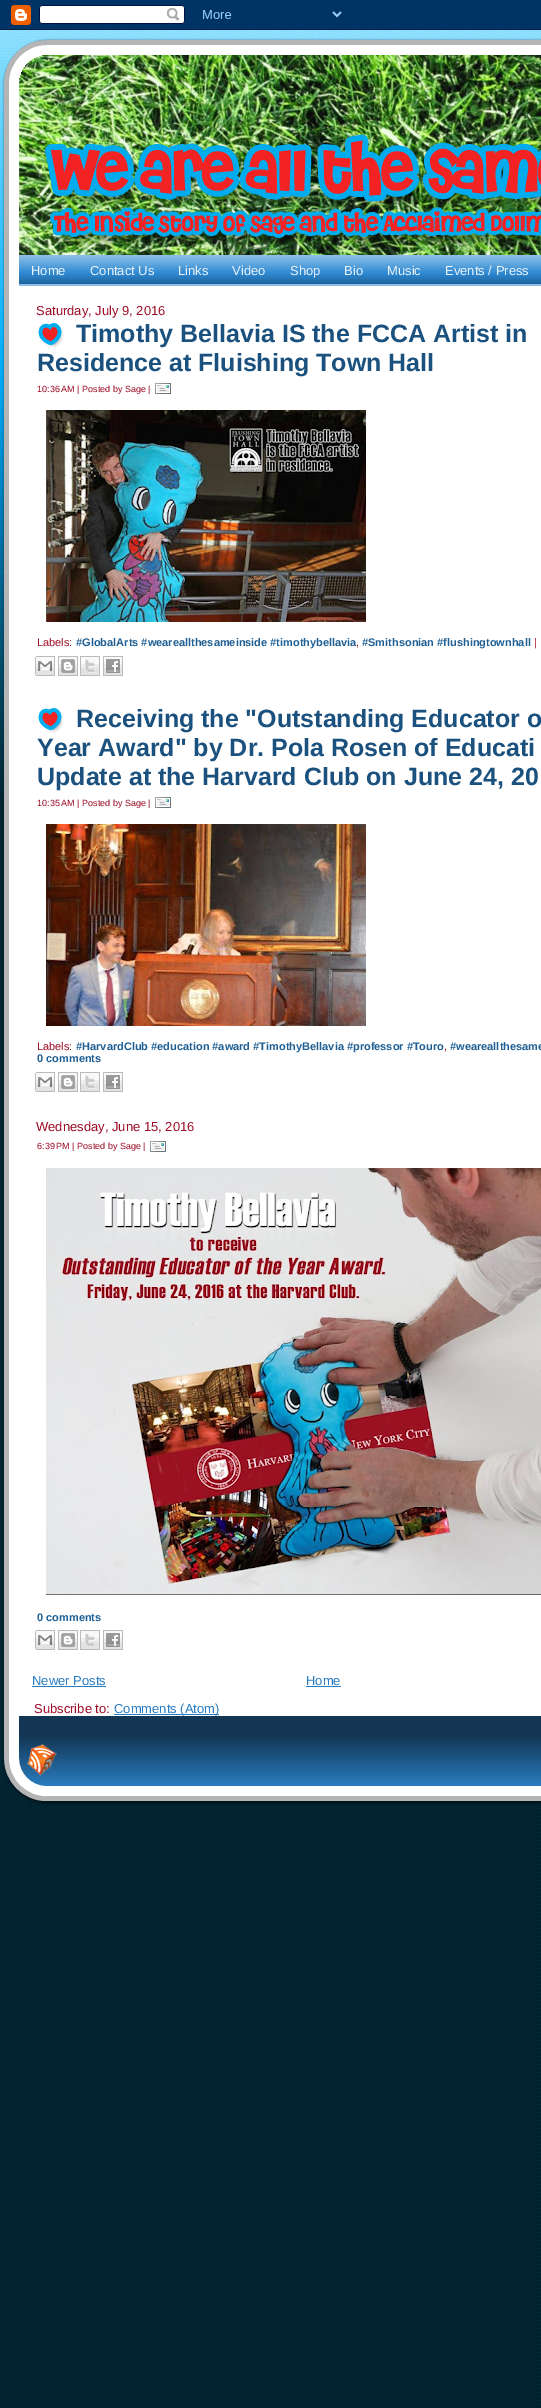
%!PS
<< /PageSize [541 2408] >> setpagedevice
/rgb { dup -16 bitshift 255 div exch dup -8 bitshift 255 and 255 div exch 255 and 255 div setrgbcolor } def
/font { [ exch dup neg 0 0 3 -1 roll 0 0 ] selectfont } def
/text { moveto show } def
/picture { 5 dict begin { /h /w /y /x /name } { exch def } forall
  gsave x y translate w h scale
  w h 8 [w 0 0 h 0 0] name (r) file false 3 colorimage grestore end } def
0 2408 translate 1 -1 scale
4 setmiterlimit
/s1 { /LiberationSans-Regular 13 font 16#EAF3FB rgb } def
/s2 { /LiberationSans-Regular 13 font 16#9D0C26 rgb } def
/s3 { /LiberationSans-Bold 25 font 16#1B517E rgb } def
/s4 { /LiberationSans-Regular 9 font 16#9D0C26 rgb } def
/s5 { /LiberationSans-Regular 11 font 16#9D0C26 rgb } def
/s6 { /LiberationSans-Bold 11 font 16#1F5F93 rgb } def
/s7 { /LiberationSans-Regular 13 font 16#297DC2 rgb } def
16#FFFFFF rgb
0 0 541 2408 rectfill
(pic1.raw) 0 800 541 1608 picture
(pic2.raw) 0 0 541 30 picture
(pic3.raw) 0 30 541 770 picture
(pic4.raw) 2 38 57 57 picture
(pic5.raw) 59 38 482 17 picture
(pic6.raw) 2 95 57 1651 picture
(pic7.raw) 19 55 522 200 picture
(pic8.raw) 45 134 496 115 picture
(pic9.raw) 19 255 522 31 picture
s1
(Home) 31 275 text
(Contact Us) 90 275 text
(Links) 178 275 text
(Video) 232 275 text
(Shop) 290 275 text
(Bio) 344 275 text
(Music) 387 275 text
(Events / Press) 445 275 text
16#FFFFFF rgb
59 286 482 1430 rectfill
s2
(Saturday, July 9, 2016) 36 315 text
(pic10.raw) 38 323 26 25 picture
s3
(Timothy Bellavia IS the FCCA Artist in) 76 342 text
(Residence at Fluishing Town Hall) 37 371 text
s4
(10:36 AM | Posted by Sage |) 37 392 text
(pic11.raw) 155 383 16 11 picture
(pic12.raw) 46 410 320 212 picture
s5
(Labels:) 37 646 text
s6
(#GlobalArts #weareallthesameinside #timothybellavia) 76 646 text
s5
(,) 356 646 text
s6
(#Smithsonian #flushingtownhall) 362 646 text
s5
(|) 534 646 text
(pic13.raw) 35 656 20 20 picture
(pic14.raw) 58 656 20 20 picture
(pic15.raw) 80 656 20 20 picture
(pic16.raw) 103 656 20 20 picture
(pic10.raw) 38 708 26 25 picture
s3
(Receiving the "Outstanding Educator o) 76 727 text
(Year Award" by Dr. Pola Rosen of Educati) 37 756 text
(Update at the Harvard Club on June 24, 20) 37 785 text
s4
(10:35 AM | Posted by Sage |) 37 806 text
(pic11.raw) 155 797 16 11 picture
(pic17.raw) 46 824 320 202 picture
s5
(Labels:) 37 1050 text
s6
(#HarvardClub #education #award #TimothyBellavia #professor #Touro) 76 1050 text
s5
(,) 444 1050 text
s6
(#weareallthesame) 450 1050 text
(0 comments) 37 1062 text
(pic13.raw) 35 1072 20 20 picture
(pic14.raw) 58 1072 20 20 picture
(pic15.raw) 80 1072 20 20 picture
(pic16.raw) 103 1072 20 20 picture
s2
(Wednesday, June 15, 2016) 36 1131 text
s4
(6:39 PM | Posted by Sage |) 37 1149 text
(pic11.raw) 150 1141 16 11 picture
(pic18.raw) 46 1168 495 427 picture
s6
(0 comments) 37 1621 text
(pic13.raw) 35 1630 20 20 picture
(pic14.raw) 58 1630 20 20 picture
(pic15.raw) 80 1630 20 20 picture
(pic16.raw) 103 1630 20 20 picture
s7
(Newer Posts) 32 1685 text
32 1686 74 1 rectfill
(Home) 306 1685 text
306 1686 35 1 rectfill
s2
(Subscribe to:) 34 1713 text
16#297DC2 rgb
114 1714 105 1 rectfill
(Comments \(Atom\)) 114 1713 text
16#123654 rgb
19 1716 522 20 rectfill
(pic22.raw) 3 1746 56 59 picture
(pic19.raw) 19 1736 28 50 picture
(pic20.raw) 47 1736 494 50 picture
(pic21.raw) 27 1744 30 32 picture
(pic23.raw) 59 1786 482 19 picture
showpage
